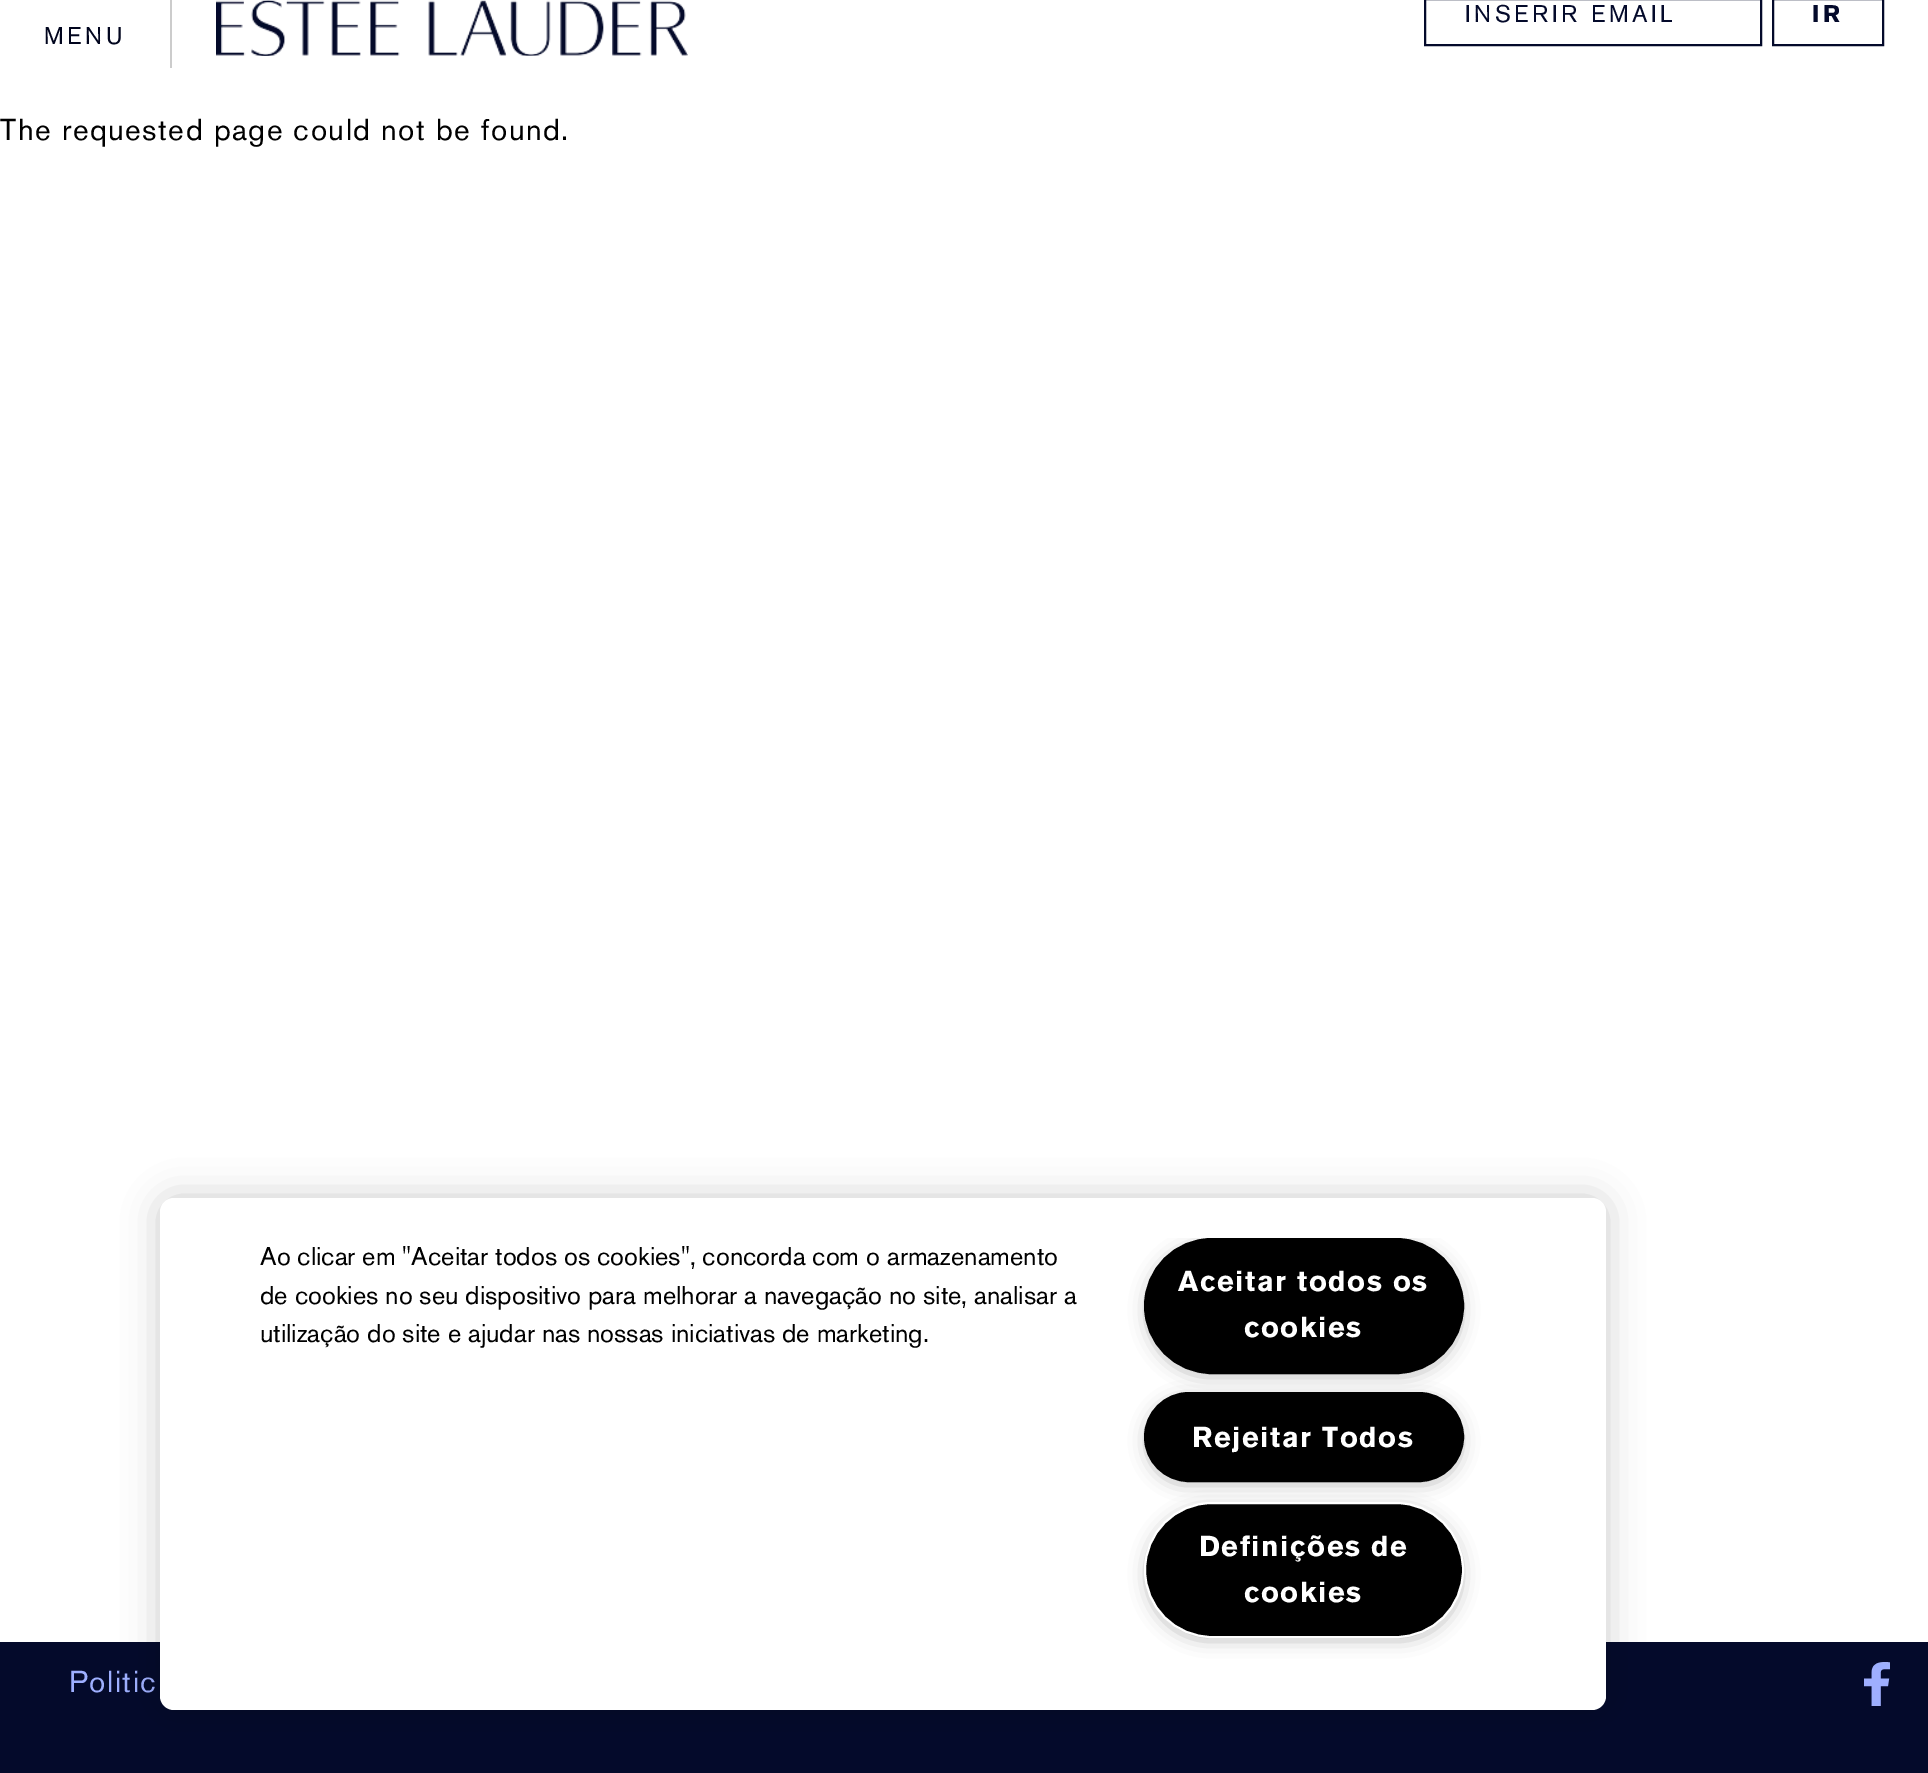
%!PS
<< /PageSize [1928 1773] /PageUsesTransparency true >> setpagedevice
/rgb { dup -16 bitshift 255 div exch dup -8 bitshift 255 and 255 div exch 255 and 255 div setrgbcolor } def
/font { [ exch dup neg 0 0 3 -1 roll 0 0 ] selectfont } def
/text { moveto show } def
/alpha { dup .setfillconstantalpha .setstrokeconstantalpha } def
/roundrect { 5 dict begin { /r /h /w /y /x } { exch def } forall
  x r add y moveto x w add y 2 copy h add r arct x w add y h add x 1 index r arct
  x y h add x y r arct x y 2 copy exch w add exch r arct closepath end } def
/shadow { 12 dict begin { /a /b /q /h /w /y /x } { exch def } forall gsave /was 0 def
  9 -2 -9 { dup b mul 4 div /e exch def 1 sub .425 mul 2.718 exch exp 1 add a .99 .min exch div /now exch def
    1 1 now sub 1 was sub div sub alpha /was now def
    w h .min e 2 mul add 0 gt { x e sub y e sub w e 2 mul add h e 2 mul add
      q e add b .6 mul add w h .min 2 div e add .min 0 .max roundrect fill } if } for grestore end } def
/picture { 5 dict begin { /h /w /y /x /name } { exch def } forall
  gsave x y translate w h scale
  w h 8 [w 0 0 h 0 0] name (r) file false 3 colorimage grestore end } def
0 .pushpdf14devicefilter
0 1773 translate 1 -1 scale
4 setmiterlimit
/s1 { /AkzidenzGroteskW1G-Regular 25.6 font 16#000000 rgb } def
16#FFFFFF rgb
0 0 1928 1773 rectfill
(pic1.raw) 216 0 472 56 picture
16#040A2B rgb
2 setlinewidth
1425 -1 336 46 rectstroke
/AkzidenzGroteskW1G-Regular 24 font
1465 22 moveto 3.6 0 (INSERIR EMAIL) ashow
1773 -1 110 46 rectstroke
/AkzidenzGroteskW1G-Bold 24 font
1812 22 moveto 3.6 0 (IR) ashow
16#CCCCCC rgb
170 0 2 68 rectfill
/AkzidenzGroteskW1G-Regular 24 font
16#01051E rgb
44 44 moveto 3.6 0 (MENU) ashow
/AkzidenzGroteskW1G-Regular 30 font
16#000000 rgb
0 140 moveto 1.5 0 (The requested page could not be found.) ashow
16#040A2B rgb
0 1642 1928 131 rectfill
16#9EAFFF rgb
69 1692 moveto 1.5 0 (Politic) ashow
(pic2.raw) 1864 1662 26 44 picture
16#000000 rgb
160 1198 1446 512 14 18 0.2 shadow
16#FFFFFF rgb
160 1198 1446 512 14 roundrect fill
s1
(Ao clicar em "Aceitar todos os cookies", concorda com o armazenamento) 260 1265 text
(de cookies no seu dispositivo para melhorar a navegação no site, analisar a) 260 1304 text
(utilização do site e ajudar nas nossas iniciativas de marketing.) 260 1342 text
gsave
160 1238 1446 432 rectclip
16#999999 rgb
1150 1248 308 124 62 10 1 shadow
grestore
1145 1239 318 134 67 roundrect gsave fill grestore
stroke
/AkzidenzGroteskW1G-Bold 28.75 font
16#FFFFFF rgb
1178 1291 moveto 1.5 0 (Aceitar todos os) ashow
1244 1337 moveto 1.5 0 (cookies) ashow
16#999999 rgb
1150 1402 308 78 39 10 1 shadow
16#000000 rgb
1145 1393 318 88 44 roundrect gsave fill grestore
stroke
16#FFFFFF rgb
1192 1447 moveto 1.5 0 (Rejeitar Todos) ashow
16#999999 rgb
1150 1512 308 124 62 10 1 shadow
16#000000 rgb
1145 1503 318 134 67 roundrect gsave fill grestore
16#FFFFFF rgb
stroke
1199 1556 moveto 1.5 0 (Definições de) ashow
1244 1602 moveto 1.5 0 (cookies) ashow
.poppdf14devicefilter showpage
